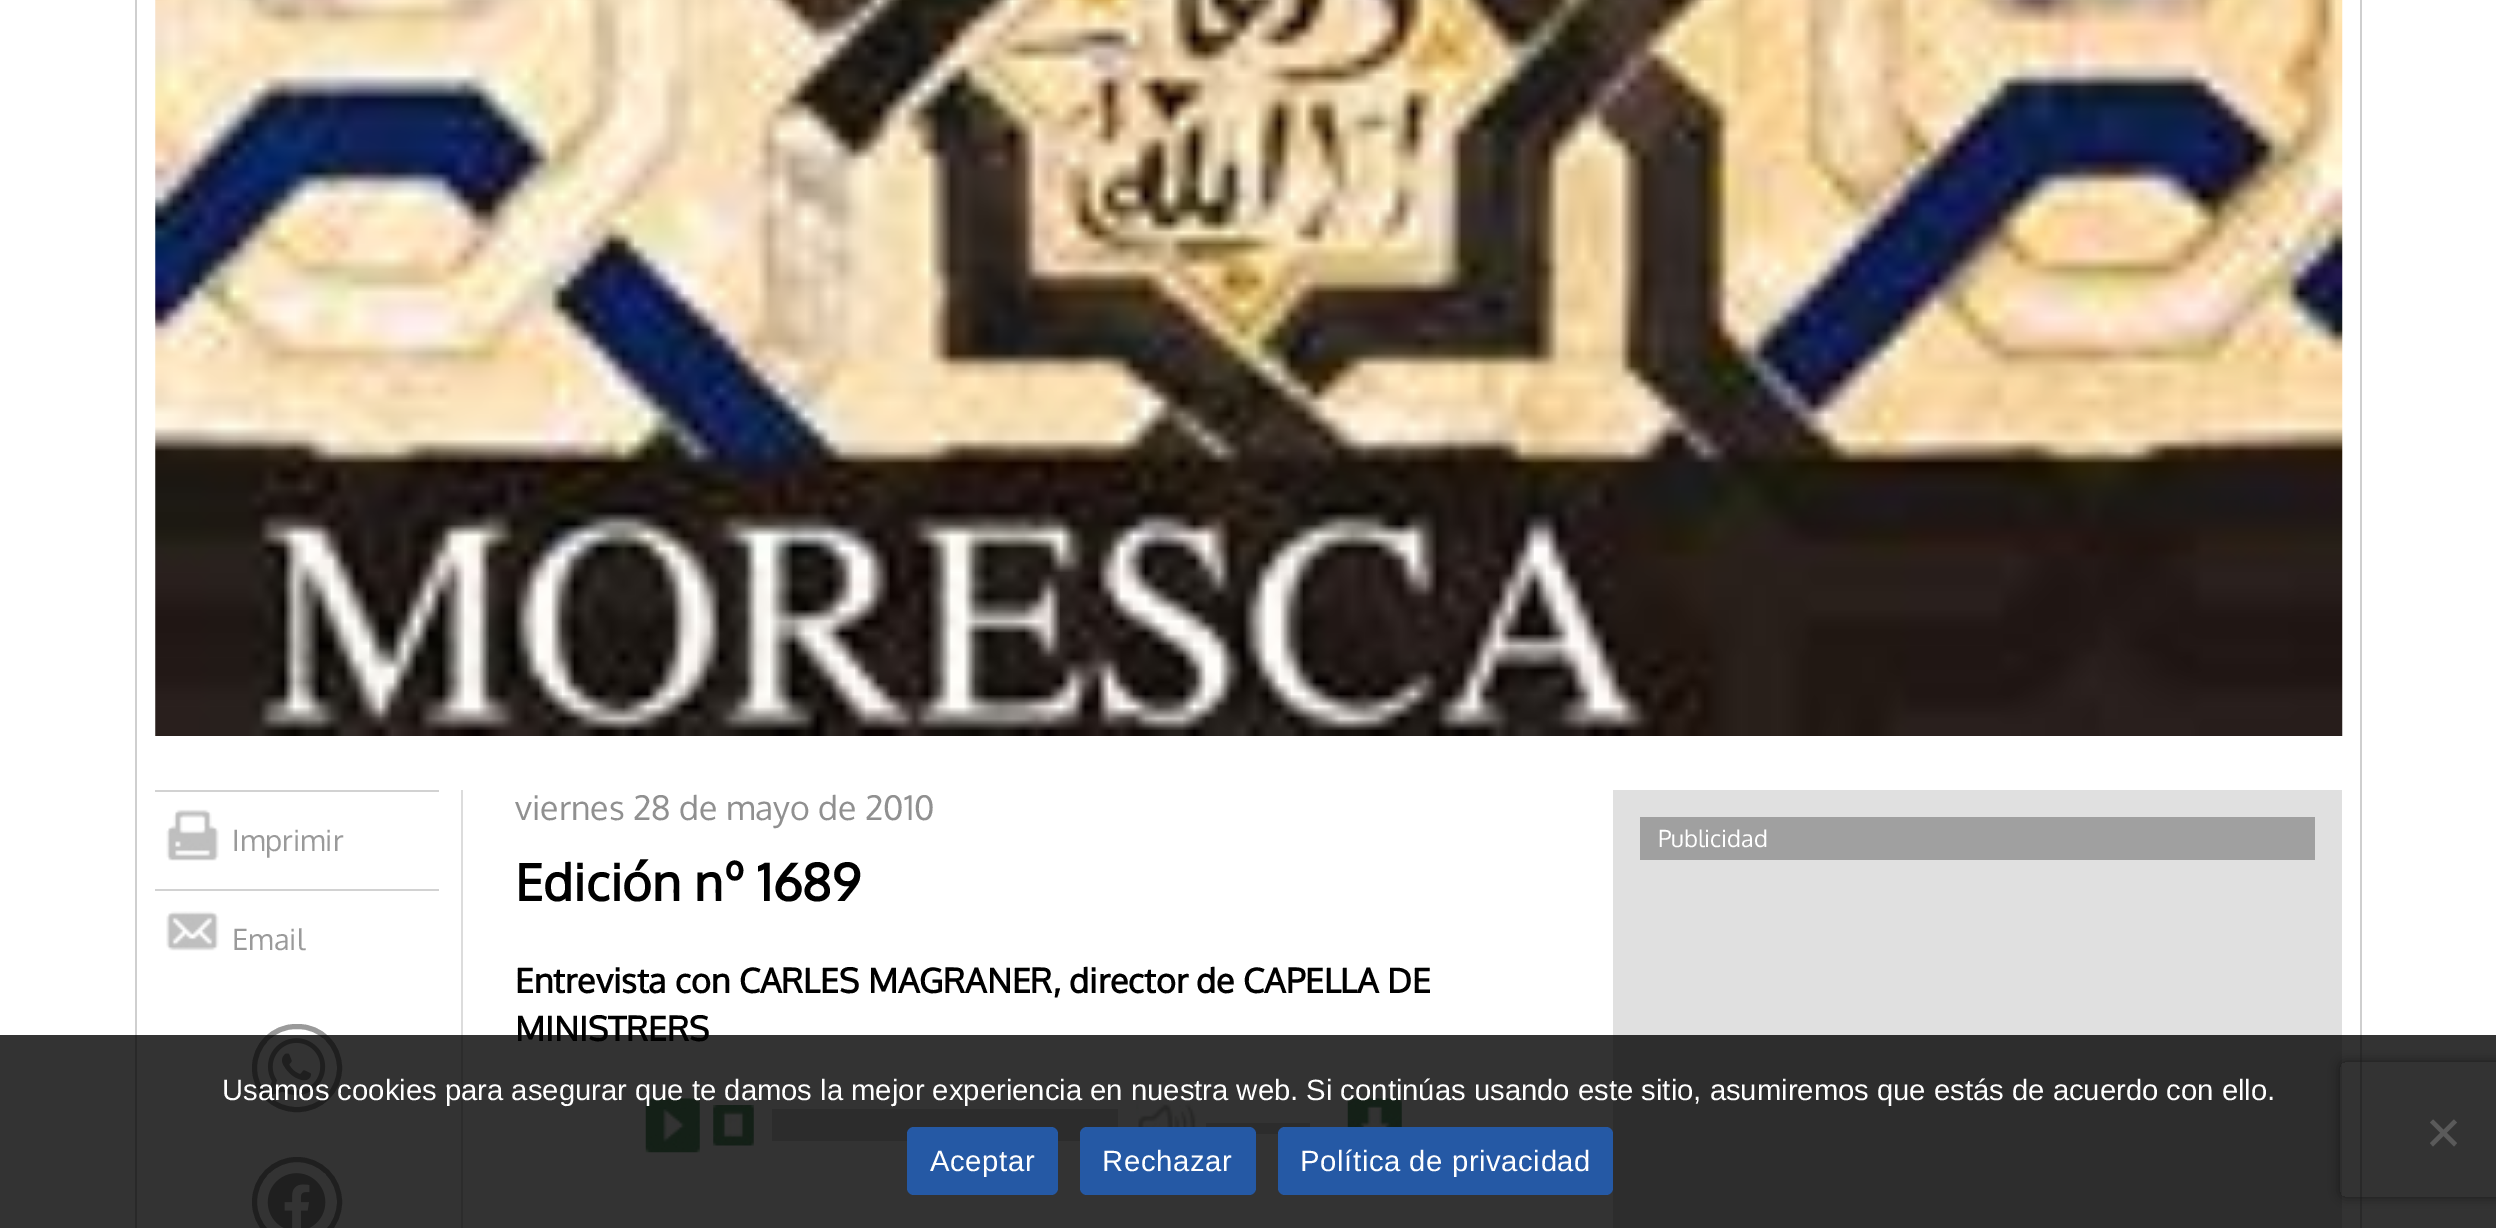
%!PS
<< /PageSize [2496 1228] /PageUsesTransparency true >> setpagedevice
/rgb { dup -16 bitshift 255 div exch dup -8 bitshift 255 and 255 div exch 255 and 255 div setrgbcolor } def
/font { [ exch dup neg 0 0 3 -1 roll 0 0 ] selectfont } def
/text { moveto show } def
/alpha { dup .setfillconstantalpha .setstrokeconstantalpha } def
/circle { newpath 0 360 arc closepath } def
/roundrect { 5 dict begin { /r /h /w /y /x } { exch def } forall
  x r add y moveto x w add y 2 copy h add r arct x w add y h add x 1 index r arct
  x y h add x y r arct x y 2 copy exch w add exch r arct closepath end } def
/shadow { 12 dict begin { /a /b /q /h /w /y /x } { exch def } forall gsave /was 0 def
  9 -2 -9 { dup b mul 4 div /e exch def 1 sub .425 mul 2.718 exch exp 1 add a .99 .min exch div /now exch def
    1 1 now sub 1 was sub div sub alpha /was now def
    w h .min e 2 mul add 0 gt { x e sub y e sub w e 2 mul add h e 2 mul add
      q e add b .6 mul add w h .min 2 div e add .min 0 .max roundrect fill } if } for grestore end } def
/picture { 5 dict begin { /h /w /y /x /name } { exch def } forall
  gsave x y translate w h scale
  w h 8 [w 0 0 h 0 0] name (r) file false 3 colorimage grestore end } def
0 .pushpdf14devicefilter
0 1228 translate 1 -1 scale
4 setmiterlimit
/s1 { /Oxygen-Regular 29.25 font 16#9A9A9A rgb } def
/s2 { /Oxygen-Regular 33.75 font 16#909090 rgb } def
/s3 { /Oxygen-Bold 50.5 font 16#000000 rgb } def
/s4 { /Oxygen-Bold 33.75 font 16#000000 rgb } def
/s5 { /Oxygen-Regular 23.5 font 16#FFFFFF rgb } def
/s6 { /LiberationSans-Regular 29.25 font 16#FFFFFF rgb } def
16#FFFFFF rgb
0 0 2496 1228 rectfill
16#CFCFCF rgb
2360 0 2 1228 rectfill
135 0 2 1228 rectfill
(pic1.raw) 155 0 2188 736 picture
16#DCDCDC rgb
461 790 2 438 rectfill
16#D2D2D2 rgb
155 790 284 2 rectfill
(pic2.raw) 166 809 53 52 picture
s1
(Imprimir) 232 851 text
16#D2D2D2 rgb
155 889 284 2 rectfill
(pic3.raw) 166 911 53 40 picture
s1
(Email) 232 950 text
5 setlinewidth
254.5 1026.5 85 83 41.5 roundrect stroke
(pic4.raw) 267 1038 59 58 picture
297 1202 42.5 circle stroke
(pic5.raw) 267 1173 59 55 picture
s2
(viernes 28 de mayo de 2010) 515 820 text
s3
(Edición nº 1689) 515 901 text
s4
(Entrevista con CARLES MAGRANER, director de CAPELLA DE) 515 993 text
(MINISTRERS) 515 1041 text
(pic6.raw) 645 1098 55 55 picture
(pic7.raw) 713 1105 41 41 picture
(pic8.raw) 1136 1099 61 28 picture
(pic9.raw) 1347 1098 55 29 picture
16#DDDDDD rgb
772 1109 346 32 rectfill
1206 1123 104 11 rectfill
16#E0E0E0 rgb
1613 790 729 438 rectfill
16#A0A0A0 rgb
1640 817 675 43 rectfill
s5
(Publicidad) 1658 847 text
gsave
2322 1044 moveto 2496 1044 lineto 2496 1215 lineto 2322 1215 lineto closepath 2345 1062 moveto 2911 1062 lineto 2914 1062 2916 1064 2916 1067 curveto 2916 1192 lineto 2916 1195 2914 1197 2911 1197 curveto 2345 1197 lineto 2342 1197 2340 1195 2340 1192 curveto 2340 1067 lineto 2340 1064 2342 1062 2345 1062 curveto closepath eoclip newpath
16#808080 rgb
2340 1062 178 135 5 5.5 1 shadow
grestore
0.8 alpha
16#000000 rgb
0 1035 2496 193 rectfill
1 alpha
s6
(Usamos cookies para asegurar que te damos la mejor experiencia en nuestra web. Si continúas usando este sitio, asumiremos que estás de acuerdo con ello.) 222 1100 text
16#5A5A5A rgb
2454 1119.5 moveto 2457 1122.5 lineto 2433 1146.5 lineto 2430 1143 lineto closepath fill
2430 1122.5 moveto 2433 1119.5 lineto 2457 1143 lineto 2454 1146.5 lineto closepath fill
16#2559A5 rgb
907 1127 151 68 7 roundrect fill
16#FFFFFF rgb
930 1171 moveto 0.6 0 (Aceptar) ashow
16#2559A5 rgb
1080 1127 176 68 7 roundrect fill
16#FFFFFF rgb
1102 1171 moveto 0.6 0 (Rechazar) ashow
16#2559A5 rgb
1278 1127 335 68 7 roundrect fill
16#FFFFFF rgb
1300 1171 moveto 0.6 0 (Política de privacidad) ashow
.poppdf14devicefilter showpage
